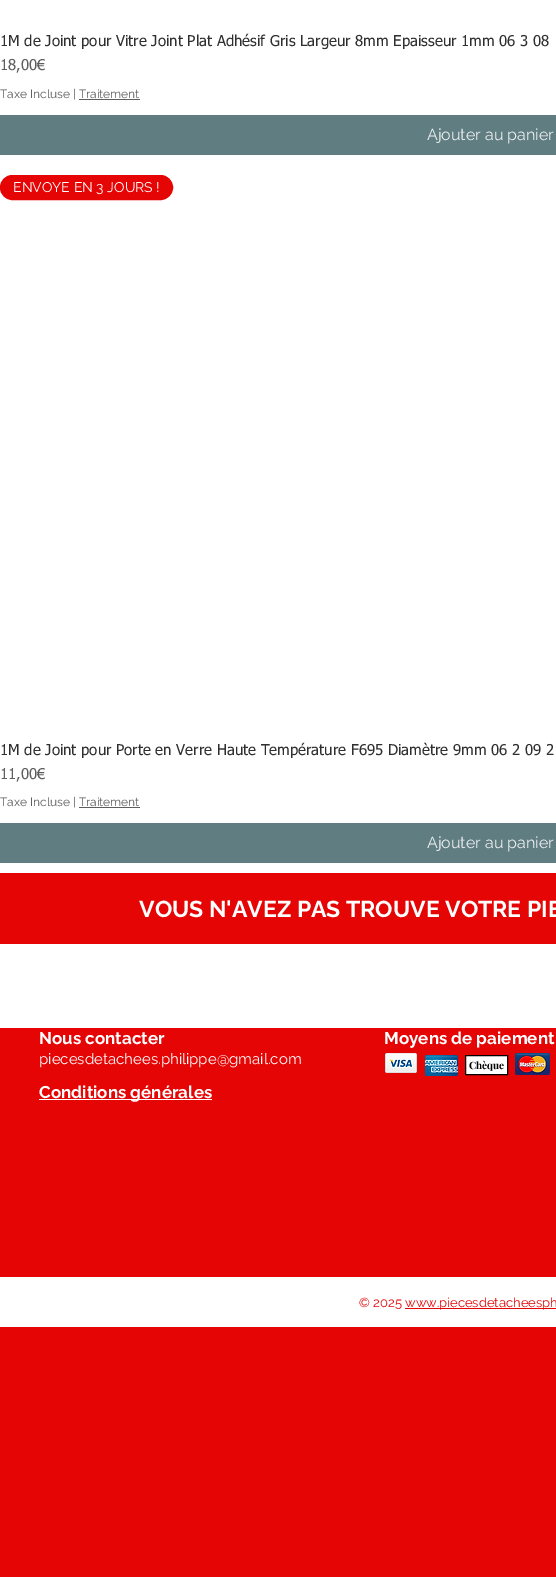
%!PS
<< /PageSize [556 1577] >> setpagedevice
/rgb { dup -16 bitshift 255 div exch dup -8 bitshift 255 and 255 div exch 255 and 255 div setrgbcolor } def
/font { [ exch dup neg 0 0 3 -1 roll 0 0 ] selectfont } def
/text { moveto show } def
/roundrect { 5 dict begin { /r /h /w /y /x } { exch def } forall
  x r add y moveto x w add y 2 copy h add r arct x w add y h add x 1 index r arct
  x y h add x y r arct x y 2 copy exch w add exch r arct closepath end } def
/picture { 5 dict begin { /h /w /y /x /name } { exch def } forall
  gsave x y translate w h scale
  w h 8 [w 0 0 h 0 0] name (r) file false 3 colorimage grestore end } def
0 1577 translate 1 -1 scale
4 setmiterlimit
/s1 { /tahoma-Regular 15 font 16#2F2F2F rgb } def
/s2 { /tahoma-Regular 15 font 16#5E5E5E rgb } def
/s3 { /Raleway-Regular 12 font 16#5E5E5E rgb } def
/s4 { /Raleway-Regular 16 font 16#EDEFF0 rgb } def
/s5 { /Raleway-Regular 14 font 16#FFFFFF rgb } def
/s6 { /Raleway-Bold 23 font 16#FFFFFF rgb } def
/s7 { /Raleway-Bold 17 font 16#FFFFFF rgb } def
/s8 { /Raleway-Regular 15 font 16#FFFFFF rgb } def
/s9 { /PlayfairDisplay-Bold 10 font 16#000000 rgb } def
/s10 { /Raleway-Regular 13 font 16#E60505 rgb } def
16#FFFFFF rgb
0 0 556 1577 rectfill
s1
(1M de Joint pour Vitre Joint Plat Adhésif Gris Largeur 8mm Epaisseur 1mm 06 3 08) 0 46 text
s2
(18,00€) 0 70 text
s3
(Taxe Incluse | Traitement) 0 98 text
79 99 61 1 rectfill
16#607D82 rgb
0 115 556 40 rectfill
s4
(Ajouter au panier) 427 140 text
16#E60505 rgb
0.5 175.5 172 24 12 roundrect gsave fill grestore
stroke
s5
(ENVOYE EN 3 JOURS !) 13 192 text
s1
(1M de Joint pour Porte en Verre Haute Température F695 Diamètre 9mm 06 2 09 2) 0 755 text
s2
(11,00€) 0 779 text
s3
(Taxe Incluse | Traitement) 0 806 text
79 807 61 1 rectfill
16#607D82 rgb
0 823 556 40 rectfill
s4
(Ajouter au panier) 427 848 text
16#E60505 rgb
0 873 556 71 rectfill
s6
(VOUS N'AVEZ PAS TROUVE VOTRE PIE) 139 917 text
16#E60505 rgb
0 1028 556 549 rectfill
s7
(Nous contacter) 39 1044 text
s8
(piecesdetachees.philippe@gmail.com) 39 1064 text
s7
(Moyens de paiement) 384 1044 text
(pic1.raw) 385 1053 32 20 picture
(pic2.raw) 425 1055 33 21 picture
465.5 1055.5 moveto 507.5 1055.5 lineto 507.5 1074.5 lineto 465.5 1074.5 lineto closepath gsave fill grestore
16#000000 rgb
stroke
s9
(Chèque) 469 1069 text
(pic3.raw) 515 1053 35 22 picture
16#FFFFFF rgb
39 1099 173 1 rectfill
s7
(Conditions générales) 39 1098 text
0 1277 556 50 rectfill
s10
(© 2025) 359 1307 text
405 1308 151 1 rectfill
(www.piecesdetacheesph) 405 1307 text
showpage
